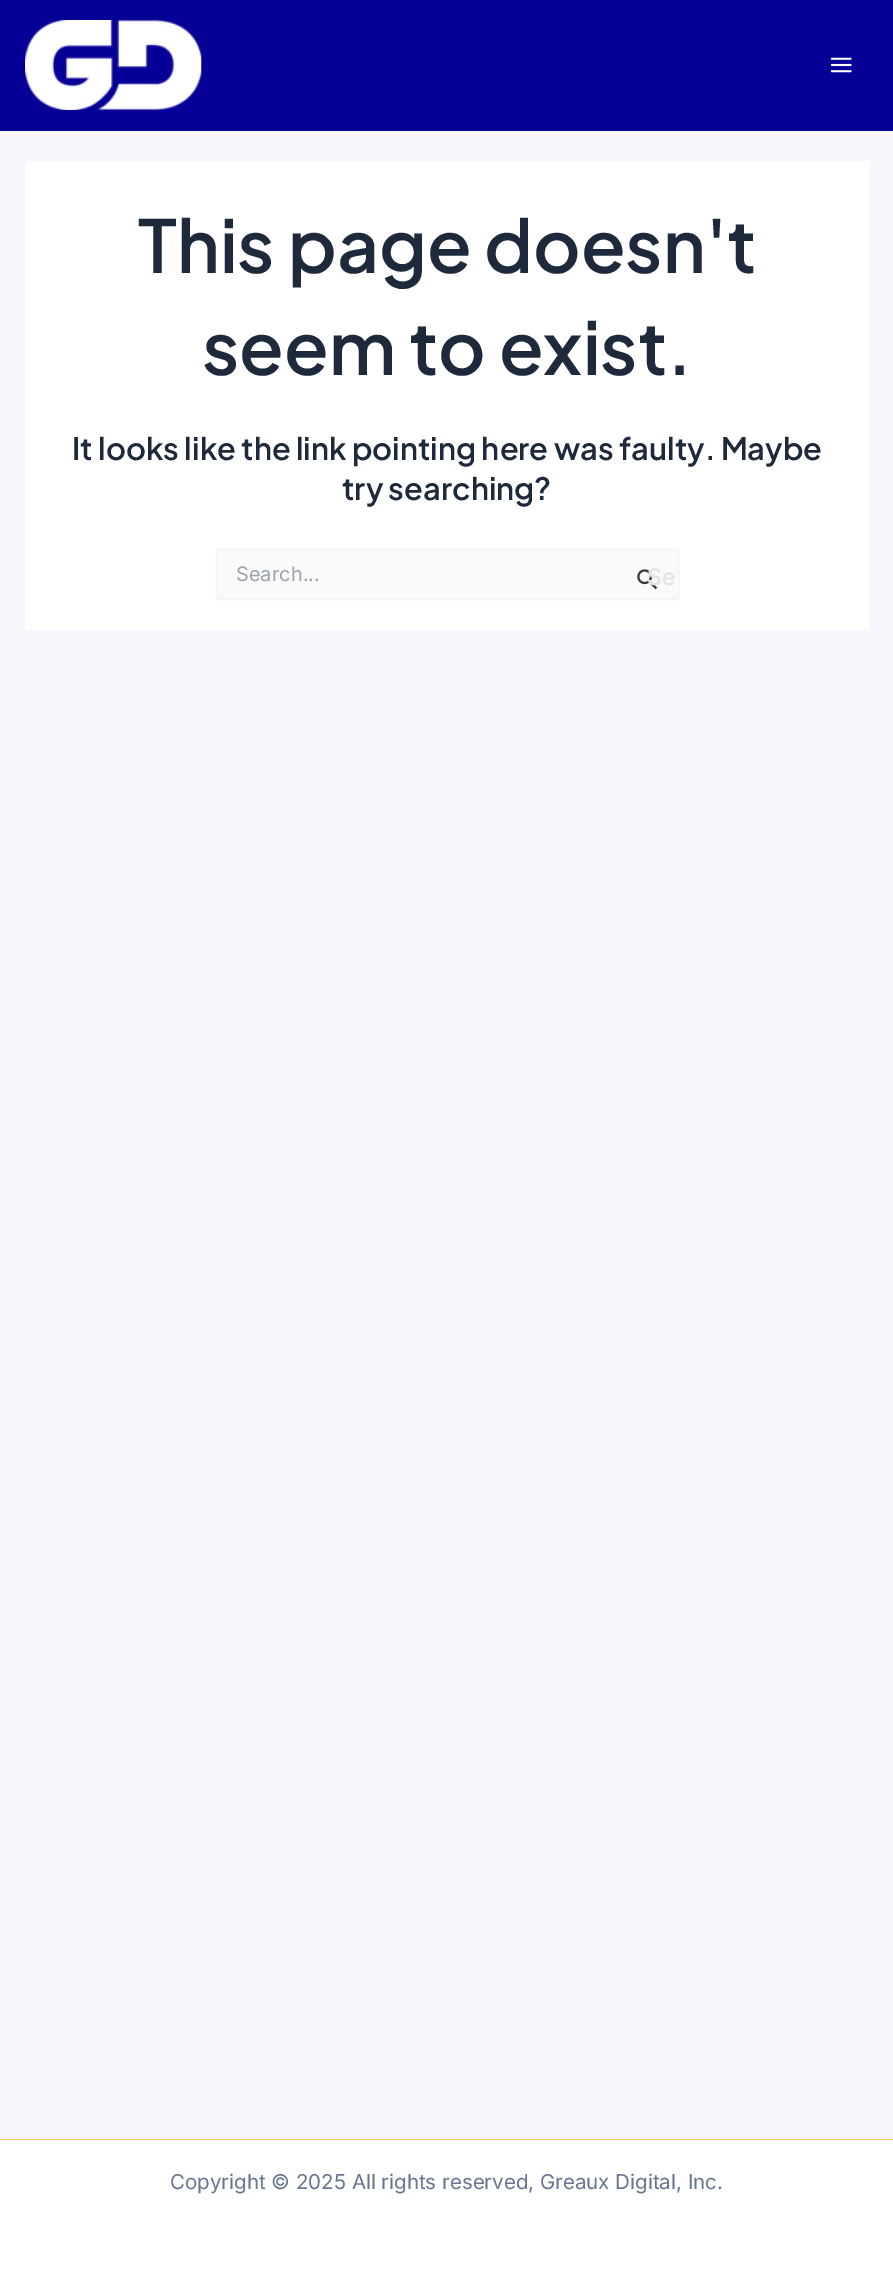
%!PS
<< /PageSize [893 2290] /PageUsesTransparency true >> setpagedevice
/rgb { dup -16 bitshift 255 div exch dup -8 bitshift 255 and 255 div exch 255 and 255 div setrgbcolor } def
/font { [ exch dup neg 0 0 3 -1 roll 0 0 ] selectfont } def
/text { moveto show } def
/alpha { dup .setfillconstantalpha .setstrokeconstantalpha } def
/roundrect { 5 dict begin { /r /h /w /y /x } { exch def } forall
  x r add y moveto x w add y 2 copy h add r arct x w add y h add x 1 index r arct
  x y h add x y r arct x y 2 copy exch w add exch r arct closepath end } def
/shadow { 12 dict begin { /a /b /q /h /w /y /x } { exch def } forall gsave /was 0 def
  9 -2 -9 { dup b mul 4 div /e exch def 1 sub .425 mul 2.718 exch exp 1 add a .99 .min exch div /now exch def
    1 1 now sub 1 was sub div sub alpha /was now def
    w h .min e 2 mul add 0 gt { x e sub y e sub w e 2 mul add h e 2 mul add
      q e add b .6 mul add w h .min 2 div e add .min 0 .max roundrect fill } if } for grestore end } def
/picture { 5 dict begin { /h /w /y /x /name } { exch def } forall
  gsave x y translate w h scale
  w h 8 [w 0 0 h 0 0] name (r) file false 3 colorimage grestore end } def
0 .pushpdf14devicefilter
0 2290 translate 1 -1 scale
4 setmiterlimit
/s1 { /PlusJakartaSans-SemiBold 73 font 16#1E293B rgb } def
/s2 { /PlusJakartaSans-SemiBold 30.75 font 16#1E293B rgb } def
/s3 { /Inter-Regular 20 font 16#9CA3AF rgb } def
/s4 { /Inter-SemiBold 23 font 16#E4E4E4 rgb } def
/s5 { /Inter-Regular 20.5 font 16#67768E rgb } def
16#F9F6FE rgb
0 0 893 2290 rectfill
16#060097 rgb
0 0 893 131 rectfill
(pic1.raw) 25 20 177 90 picture
(pic2.raw) 830 57 22 16 picture
16#FFFFFF rgb
25 161 844 469 rectfill
s1
(This page doesn't) 138 273 text
(seem to exist.) 202 375 text
s2
(It looks like the link pointing here was faulty. Maybe) 72 460 text
(try searching?) 342 500 text
16#000000 rgb
216 550 463 50 2.5 1 0.05 shadow
16#FAFAFA rgb
216.5 549.5 462 49 2 roundrect gsave fill grestore
16#F2F5F7 rgb
stroke
s3
(Search...) 236 581 text
(pic3.raw) 637 569 21 21 picture
s4
(Se) 647 585 text
16#FFFFFF rgb
0 2140 893 150 rectfill
16#FFCD57 rgb
0 2139 893 1 rectfill
s5
(Copyright © 2025 All rights reserved, Greaux Digital, Inc.) 170 2189 text
.poppdf14devicefilter showpage
